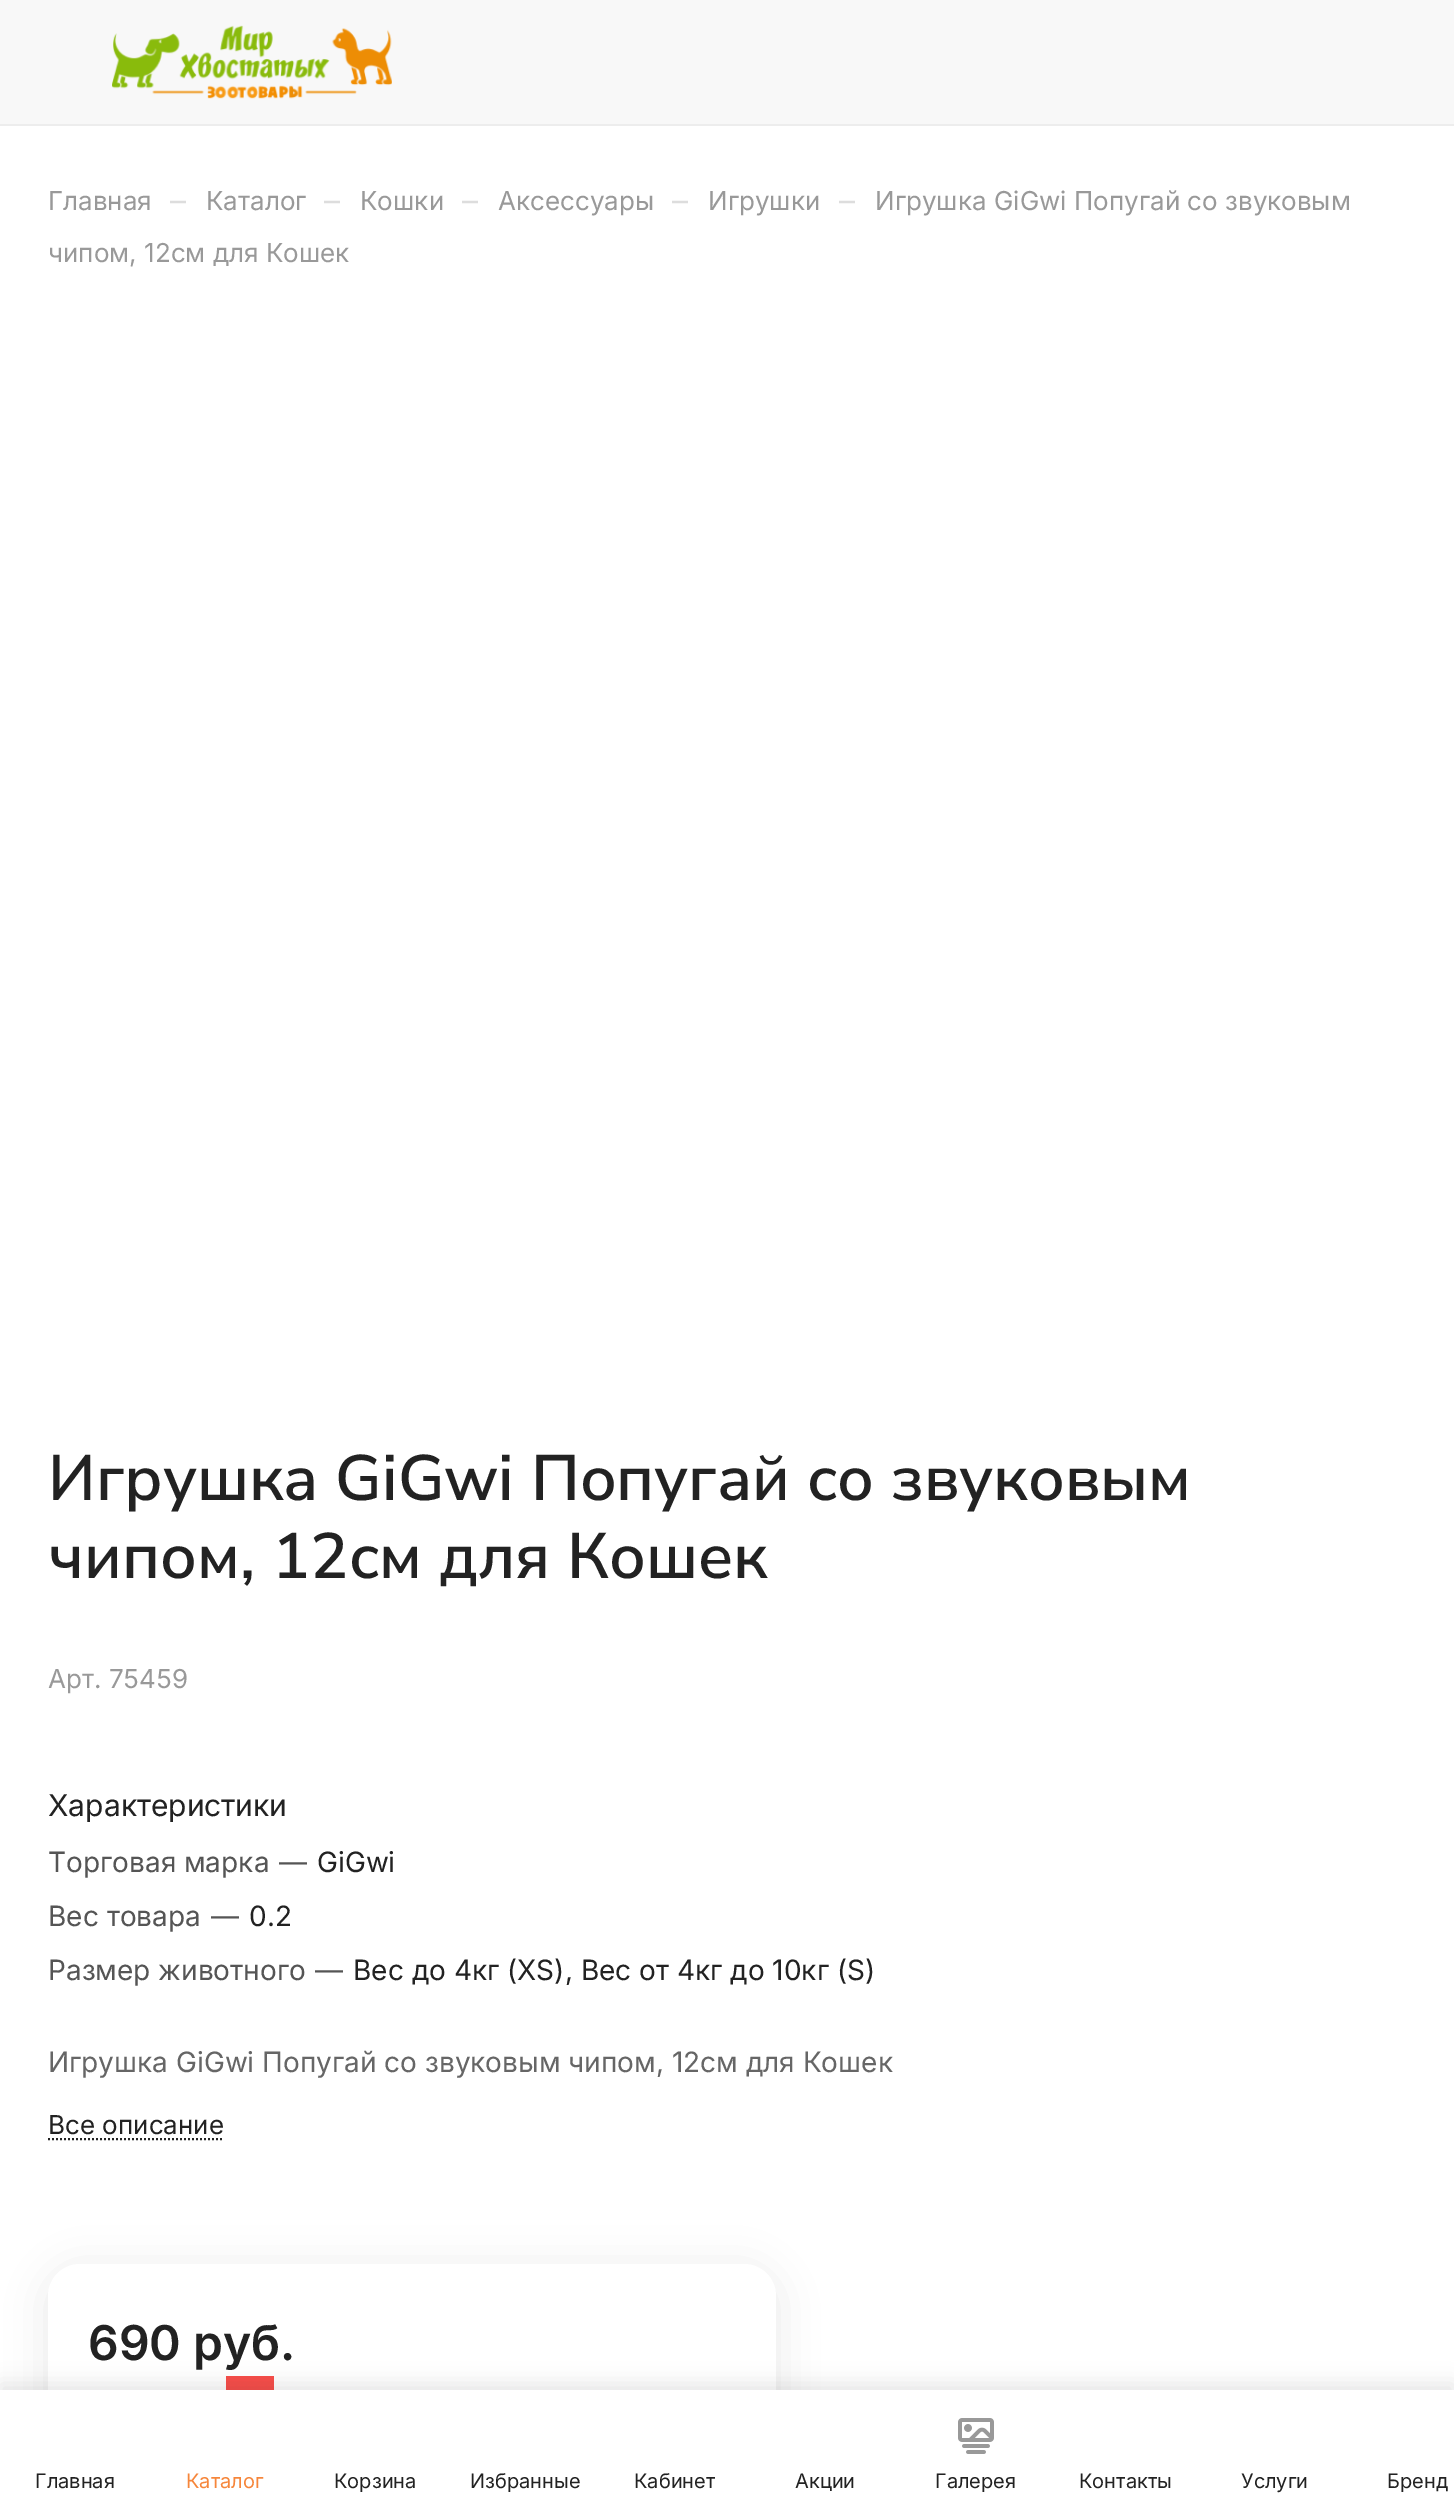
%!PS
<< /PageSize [1454 2512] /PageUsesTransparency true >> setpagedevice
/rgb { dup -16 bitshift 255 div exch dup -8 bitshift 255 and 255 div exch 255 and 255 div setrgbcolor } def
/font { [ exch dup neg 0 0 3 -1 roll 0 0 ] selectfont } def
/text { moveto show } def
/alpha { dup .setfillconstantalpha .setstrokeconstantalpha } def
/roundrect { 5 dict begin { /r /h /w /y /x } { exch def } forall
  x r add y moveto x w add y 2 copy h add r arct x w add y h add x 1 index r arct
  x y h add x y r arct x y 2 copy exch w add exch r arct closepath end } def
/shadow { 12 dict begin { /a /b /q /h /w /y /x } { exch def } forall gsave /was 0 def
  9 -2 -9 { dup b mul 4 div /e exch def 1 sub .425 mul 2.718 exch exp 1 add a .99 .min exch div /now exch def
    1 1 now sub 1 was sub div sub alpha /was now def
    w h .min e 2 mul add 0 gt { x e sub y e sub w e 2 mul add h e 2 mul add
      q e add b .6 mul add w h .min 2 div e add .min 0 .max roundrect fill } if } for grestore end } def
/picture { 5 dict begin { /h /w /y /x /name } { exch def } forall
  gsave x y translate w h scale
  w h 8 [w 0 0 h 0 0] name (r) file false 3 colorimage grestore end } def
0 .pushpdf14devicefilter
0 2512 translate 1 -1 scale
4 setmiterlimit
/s1 { /Inter-Regular 26 font 16#999999 rgb } def
/s2 { /Inter-Regular 32 font 16#DDDDDD rgb } def
/s3 { /NunitoSans-SemiBold 64 font 16#222222 rgb } def
/s4 { /Inter-Regular 30 font 16#222222 rgb } def
/s5 { /Inter-Regular 28 font 16#555555 rgb } def
/s6 { /Inter-Regular 28 font 16#222222 rgb } def
/s7 { /Inter-Regular 28 font 16#666666 rgb } def
/s8 { /Inter-Regular 26 font 16#222222 rgb } def
/s9 { /Inter-SemiBold 48 font 16#222222 rgb } def
/s10 { /Inter-Regular 20 font 16#222222 rgb } def
/s11 { /Inter-Regular 20 font 16#F6863B rgb } def
16#FFFFFF rgb
0 0 1454 2512 rectfill
16#EDEDED rgb
0 124 1454 2 rectfill
16#F8F8F8 rgb
0 0 1454 124 rectfill
(pic1.raw) 112 25 280 74 picture
s1
(Главная) 48 210 text
s2
(–) 170 212 text
s1
(Каталог) 206 210 text
s2
(–) 324 212 text
s1
(Кошки) 360 210 text
s2
(–) 462 212 text
s1
(Аксессуары) 498 210 text
s2
(–) 672 212 text
s1
(Игрушки) 708 210 text
s2
(–) 839 212 text
s1
(Игрушка GiGwi Попугай со звуковым) 875 210 text
(чипом, 12см для Кошек) 48 262 text
s3
(Игрушка GiGwi Попугай со звуковым) 48 1500 text
(чипом, 12см для Кошек) 48 1578 text
s1
(Арт. 75459) 48 1688 text
s4
(Характеристики) 48 1816 text
s5
(Торговая марка) 48 1872 text
(—) 279 1872 text
s6
(GiGwi) 317 1872 text
s5
(Вес товара) 48 1926 text
(—) 211 1926 text
s6
(0.2) 249 1926 text
s5
(Размер животного) 48 1980 text
(—) 315 1980 text
s6
(Вeс до 4кг \(XS\), Вeс от 4кг до 10кг \(S\)) 353 1980 text
s7
(Игрушка GiGwi Попугай со звуковым чипом, 12см для Кошек) 48 2072 text
s8
(Все описание) 48 2134 text
2 setlinewidth
[2 2] 0 setdash
48 2139 moveto 224 2139 lineto stroke
48 2270 728 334 32 20 0.1 shadow
16#FFFFFF rgb
48 2264 728 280 32 roundrect fill
s9
(690 руб.) 88 2360 text
16#F84E4A rgb
226 2376 48 14 rectfill
16#000000 rgb
0 2384 1454 122 0 10 0.1 shadow
16#FFFFFF rgb
0 2390 1454 122 rectfill
s10
(Главная) 35 2488 text
s11
(Каталог) 186 2488 text
s10
(Корзина) 334 2488 text
(Избранные) 470 2488 text
(Кабинет) 634 2488 text
(Акции) 795 2488 text
(pic2.raw) 958 2418 36 36 picture
(Галерея) 935 2488 text
(Контакты) 1079 2488 text
(Услуги) 1241 2488 text
(Бренд) 1387 2488 text
.poppdf14devicefilter showpage
